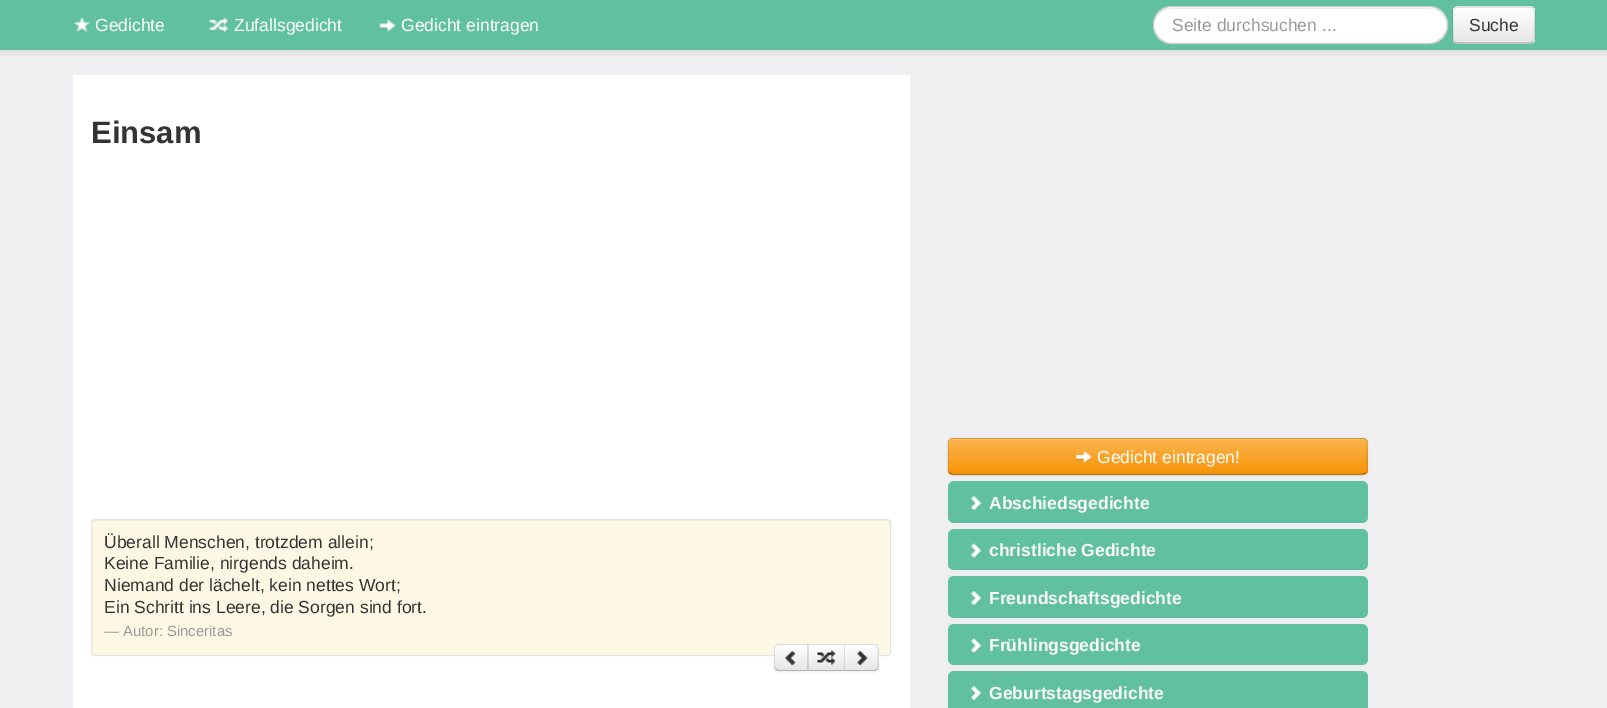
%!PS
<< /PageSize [1607 708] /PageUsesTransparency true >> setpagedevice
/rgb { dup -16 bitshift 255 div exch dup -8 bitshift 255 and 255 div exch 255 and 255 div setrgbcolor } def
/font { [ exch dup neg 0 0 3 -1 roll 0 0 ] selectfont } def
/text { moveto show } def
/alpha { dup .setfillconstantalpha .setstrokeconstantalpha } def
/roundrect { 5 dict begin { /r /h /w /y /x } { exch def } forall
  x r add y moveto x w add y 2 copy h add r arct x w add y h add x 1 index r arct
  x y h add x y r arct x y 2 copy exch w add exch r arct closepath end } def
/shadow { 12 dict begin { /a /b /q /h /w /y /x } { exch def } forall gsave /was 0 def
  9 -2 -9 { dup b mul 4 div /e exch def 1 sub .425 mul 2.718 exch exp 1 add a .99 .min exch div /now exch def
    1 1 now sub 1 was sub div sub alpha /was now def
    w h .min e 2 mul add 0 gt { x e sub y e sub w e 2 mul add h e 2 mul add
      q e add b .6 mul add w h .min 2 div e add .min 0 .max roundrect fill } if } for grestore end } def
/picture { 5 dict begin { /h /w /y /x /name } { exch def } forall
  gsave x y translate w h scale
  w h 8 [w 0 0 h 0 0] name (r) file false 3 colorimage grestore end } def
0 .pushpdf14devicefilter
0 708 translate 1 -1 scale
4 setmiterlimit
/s1 { /LiberationSans-Regular 17.5 font 16#FFFFFF rgb } def
/s2 { /LiberationSans-Regular 17.5 font 16#999999 rgb } def
/s3 { /LiberationSans-Regular 17.5 font 16#333333 rgb } def
/s4 { /LiberationSans-Bold 31 font 16#333333 rgb } def
/s5 { /LiberationSans-Regular 14.9 font 16#999999 rgb } def
/s6 { /LiberationSans-Bold 17.5 font 16#F9F9F9 rgb } def
16#EFEFF1 rgb
0 0 1607 708 rectfill
16#60C0A0 rgb
0 0 1607 50 rectfill
gsave
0 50 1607 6 rectclip
16#000000 rgb
0 1 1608 50 0 6 0.1 shadow
grestore
(pic1.raw) 73 17 18 16 picture
s1
(Gedichte) 95 31 text
(pic2.raw) 209 17 20 16 picture
(Zufallsgedicht) 234 31 text
(pic3.raw) 379 19 17 13 picture
(Gedicht eintragen) 401 31 text
1153 6 295 38 19 roundrect fill
16#ECECEC rgb
1171 9 moveto 1429 9 lineto 1436 10 lineto 1439 11 1442 14 1444 17 curveto 1441 11 1435 8 1428 8 curveto 1172 8 lineto 1164 8 1158 12 1155 19 curveto 1158 13 1163 9 1171 9 curveto closepath fill
16#CCCCCC rgb
1153.5 6.5 294 37 18.5 roundrect stroke
s2
(Seite durchsuchen ...) 1172 31 text
16#F5F5F5 rgb
1453 6 82 38 5 roundrect fill
gsave
1453 6 82 38 5 roundrect clip newpath
gsave 1453 8 moveto 1535 8 lineto 1535 43 lineto 1453 43 lineto closepath clip newpath
<< /ShadingType 2 /ColorSpace /DeviceRGB /Coords [1494 7.5 1494 43] /Extend [true true] /Function << /FunctionType 2 /Domain [0 1] /C0 [1 1 1] /C1 [0.902 0.902 0.902] /N 1 >> >> shfill grestore
grestore
16#B3B3B3 rgb
1.2 setlinewidth
1533 42 moveto 1530.5 43 lineto 1457 43 lineto 1454.5 42 lineto stroke
0.1 alpha
16#000000 rgb
1454.5 42 moveto 1452.5 40 1453 36.5 1453 34 curveto 1453 25 lineto 1453 5.5 1450 7 1469.5 7 curveto 1518 7 lineto 1537.5 7 1534.5 5.5 1534.5 25 curveto 1534.5 34 lineto 1534.5 36.5 1535 40 1533 42 curveto stroke
1 alpha
s3
(Suche) 1469 31 text
16#FFFFFF rgb
73 75 837 633 rectfill
s4
(Einsam) 91 143 text
16#FCF8E3 rgb
91 519 800 137 4 roundrect fill
16#EFECD8 rgb
95 521 moveto 888 521 lineto 889 521 890 522 890 524 curveto 890 522 lineto 890 521 889 520 888 520 curveto 96 520 lineto 94 520 93 521 93 522 curveto closepath fill
16#E3E3E3 rgb
1 setlinewidth
91.5 519.5 799 136 3.5 roundrect stroke
s3
(Überall Menschen, trotzdem allein;) 104 548 text
(Keine Familie, nirgends daheim.) 104 569 text
(Niemand der lächelt, kein nettes Wort;) 104 591 text
(Ein Schritt ins Leere, die Sorgen sind fort.) 104 613 text
s5
(— Autor: Sinceritas) 104 636 text
16#000000 rgb
774 645 35 28 5 1 0.05 shadow
16#F5F5F5 rgb
779 644 moveto 809 644 lineto 809 671 lineto 779 671 lineto 776 671 774 669 774 666 curveto 774 649 lineto 774 646 776 644 779 644 curveto closepath fill
gsave
779 644 moveto 809 644 lineto 809 671 lineto 779 671 lineto 776 671 774 669 774 666 curveto 774 649 lineto 774 646 776 644 779 644 curveto closepath clip newpath
gsave 774 645 moveto 808 645 lineto 808 670 lineto 774 670 lineto closepath clip newpath
<< /ShadingType 2 /ColorSpace /DeviceRGB /Coords [791 645 791 670] /Extend [true true] /Function << /FunctionType 2 /Domain [0 1] /C0 [1 1 1] /C1 [0.902 0.902 0.902] /N 1 >> >> shfill grestore
grestore
0.1 alpha
16#000000 rgb
779 644 moveto 777.5 644 776 644.5 775.5 645.5 curveto 776 646 lineto 777 645.5 778 645 779 645 curveto 807.5 645 lineto 808.5 644 lineto closepath fill
809 671 moveto 807.5 670 lineto 807.5 645 lineto 808.5 644 lineto 809 644 lineto closepath fill
1 alpha
16#B3B3B3 rgb
808.5 671 moveto 779 671 lineto 777.5 671 776 670.5 775.5 669.5 curveto 776 669 lineto 777 669.5 778 670 779 670 curveto 807.5 670 lineto closepath fill
0.1 alpha
16#000000 rgb
775.5 645.5 moveto 774.5 646 774 647.5 774 649 curveto 774 666 lineto 774 667.5 774.5 669 775.5 669.5 curveto 776 669 lineto 775.5 668 775 667 775 666 curveto 775 649 lineto 775 648 775.5 647 776 646 curveto closepath fill
1 alpha
(pic4.raw) 784 651 12 15 picture
808 645 37 28 0 1 0.05 shadow
16#F5F5F5 rgb
808 644 1 27 rectfill
gsave 808 645 moveto 844 645 lineto 844 670 lineto 808 670 lineto closepath clip newpath
<< /ShadingType 2 /ColorSpace /DeviceRGB /Coords [826 645 826 670] /Extend [true true] /Function << /FunctionType 2 /Domain [0 1] /C0 [1 1 1] /C1 [0.902 0.902 0.902] /N 1 >> >> shfill grestore
16#DDDDDD rgb
807.5 644 moveto 845 644 lineto 844 645 lineto 809 645 lineto closepath fill
16#B3B3B3 rgb
845 671 moveto 807.5 671 lineto 809 670 lineto 844 670 lineto closepath fill
0.1 alpha
16#000000 rgb
807.5 671 moveto 807.5 644 lineto 809 645 lineto 809 670 lineto closepath fill
1 alpha
(pic5.raw) 817 649 19 17 picture
844 645 35 28 5 1 0.05 shadow
16#F5F5F5 rgb
844 644 moveto 874 644 lineto 877 644 879 646 879 649 curveto 879 666 lineto 879 669 877 671 874 671 curveto 844 671 lineto closepath fill
gsave
844 644 moveto 874 644 lineto 877 644 879 646 879 649 curveto 879 666 lineto 879 669 877 671 874 671 curveto 844 671 lineto closepath clip newpath
gsave 844 645 moveto 879 645 lineto 879 670 lineto 844 670 lineto closepath clip newpath
<< /ShadingType 2 /ColorSpace /DeviceRGB /Coords [861 645 861 670] /Extend [true true] /Function << /FunctionType 2 /Domain [0 1] /C0 [1 1 1] /C1 [0.902 0.902 0.902] /N 1 >> >> shfill grestore
grestore
0.1 alpha
16#000000 rgb
844 644 moveto 845 645 lineto 874 645 lineto 875 645 876 645.5 876.5 646 curveto 877.5 645 lineto 876.5 644.5 875 644 874 644 curveto closepath fill
877.5 645 moveto 878 646 878.5 646.5 879 647.5 curveto 879 667.5 lineto 878.5 668.5 878 669 877.5 670 curveto 876.5 669 lineto 877 668.5 877.5 667.5 877.5 666 curveto 877.5 649 lineto 877.5 647.5 877 646.5 876.5 646 curveto closepath fill
1 alpha
16#B3B3B3 rgb
877.5 670 moveto 876.5 670.5 875 671 874 671 curveto 844 671 lineto 845 670 lineto 874 670 lineto 875 670 876 669.5 876.5 669 curveto closepath fill
0.1 alpha
16#000000 rgb
845 645 moveto 844 644 lineto 844 671 lineto 845 670 lineto closepath fill
1 alpha
(pic6.raw) 857 651 11 15 picture
948 439 420 37 5 1 0.05 shadow
16#FAA732 rgb
948 438 420 37 5 roundrect fill
gsave
948 438 420 37 5 roundrect clip newpath
gsave 948 439 moveto 1368 439 lineto 1368 474 lineto 948 474 lineto closepath clip newpath
<< /ShadingType 2 /ColorSpace /DeviceRGB /Coords [1158 439 1158 474] /Extend [true true] /Function << /FunctionType 2 /Domain [0 1] /C0 [0.984 0.706 0.314] /C1 [0.973 0.58 0.024] /N 1 >> >> shfill grestore
grestore
16#FCC372 rgb
952 440 moveto 1362 440 lineto 1365 440 1366 442 1366 444 curveto 1366 443 lineto 1366 441 1364 439 1362 439 curveto 953 439 lineto 951 439 949 441 949 443 curveto 949 444 lineto 949 442 950 440 952 440 curveto closepath fill
0.25 alpha
16#000000 rgb
1.2 setlinewidth
1365.5 473 moveto 1362.5 474.5 lineto 952.5 474.5 lineto 949.5 473 lineto stroke
0.1 alpha
949.5 473 moveto 947.5 471 948 468 948 465.5 curveto 948 447 lineto 948 444 947.5 440 951 438.5 curveto 1364 438.5 lineto 1367.5 440 1367 444 1367 447 curveto 1367 465.5 lineto 1367 468 1367.5 471 1365.5 473 curveto stroke
1 alpha
(pic7.raw) 1076 451 16 13 picture
s1
(Gedicht eintragen!) 1097 463 text
16#60C0A0 rgb
948 481 420 42 6 roundrect fill
(pic8.raw) 971 496 11 15 picture
s6
(Abschiedsgedichte) 989 509 text
16#60C0A0 rgb
948 529 420 41 6 roundrect fill
(pic9.raw) 971 543 11 16 picture
s6
(christliche Gedichte) 989 556 text
16#60C0A0 rgb
948 576 420 42 6 roundrect fill
(pic8.raw) 971 591 11 15 picture
s6
(Freundschaftsgedichte) 989 604 text
16#60C0A0 rgb
948 624 420 41 6 roundrect fill
(pic9.raw) 971 638 11 16 picture
s6
(Frühlingsgedichte) 989 651 text
16#60C0A0 rgb
948 671 420 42 6 roundrect fill
(pic8.raw) 971 686 11 15 picture
s6
(Geburtstagsgedichte) 989 699 text
.poppdf14devicefilter showpage
